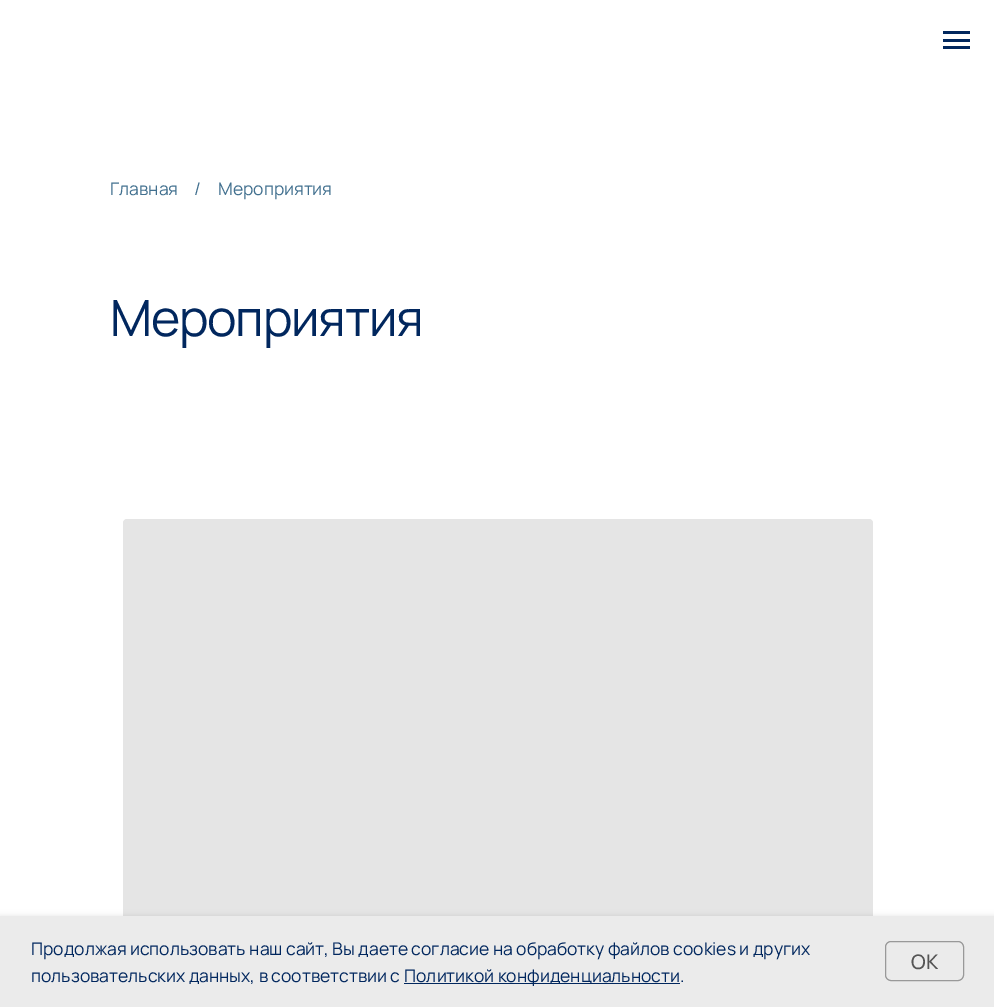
%!PS
<< /PageSize [994 1007] /PageUsesTransparency true >> setpagedevice
/rgb { dup -16 bitshift 255 div exch dup -8 bitshift 255 and 255 div exch 255 and 255 div setrgbcolor } def
/font { [ exch dup neg 0 0 3 -1 roll 0 0 ] selectfont } def
/text { moveto show } def
/alpha { dup .setfillconstantalpha .setstrokeconstantalpha } def
/roundrect { 5 dict begin { /r /h /w /y /x } { exch def } forall
  x r add y moveto x w add y 2 copy h add r arct x w add y h add x 1 index r arct
  x y h add x y r arct x y 2 copy exch w add exch r arct closepath end } def
/shadow { 12 dict begin { /a /b /q /h /w /y /x } { exch def } forall gsave /was 0 def
  9 -2 -9 { dup b mul 4 div /e exch def 1 sub .425 mul 2.718 exch exp 1 add a .99 .min exch div /now exch def
    1 1 now sub 1 was sub div sub alpha /was now def
    w h .min e 2 mul add 0 gt { x e sub y e sub w e 2 mul add h e 2 mul add
      q e add b .6 mul add w h .min 2 div e add .min 0 .max roundrect fill } if } for grestore end } def
0 .pushpdf14devicefilter
0 1007 translate 1 -1 scale
4 setmiterlimit
/s1 { /Manrope-ExtraLight 17.5 font 16#42708F rgb } def
/s2 { /Manrope-ExtraLight 17.5 font 16#01275E rgb } def
/s3 { /Manrope-Medium 20 font 16#555555 rgb } def
16#FFFFFF rgb
0 0 994 1007 rectfill
16#01275E rgb
943 31 27 3 rectfill
943 39 27 3 rectfill
943 46 27 3 rectfill
s1
(Главная) 110 195 text
(/) 194 195 text
(Мероприятия) 218 195 text
/Manrope-ExtraLight 50 font
16#01275E rgb
110 336 moveto -1.25 0 (Мероприятия) ashow
16#E5E5E5 rgb
123 519 750 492 4 roundrect fill
16#000000 rgb
0 916 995 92 0 3 0.1 shadow
16#EBEBEB rgb
0 916 994 91 rectfill
s2
(Продолжая использовать наш сайт, Вы даете согласие на обработку файлов cookies и других) 31 955 text
(пользовательских данных, в соответствии с) 31 982 text
404 983 276 1 rectfill
(Политикой конфиденциальности.) 404 982 text
16#999999 rgb
885.5 941.5 78 39 5.5 roundrect stroke
s3
(OK) 911 969 text
.poppdf14devicefilter showpage
